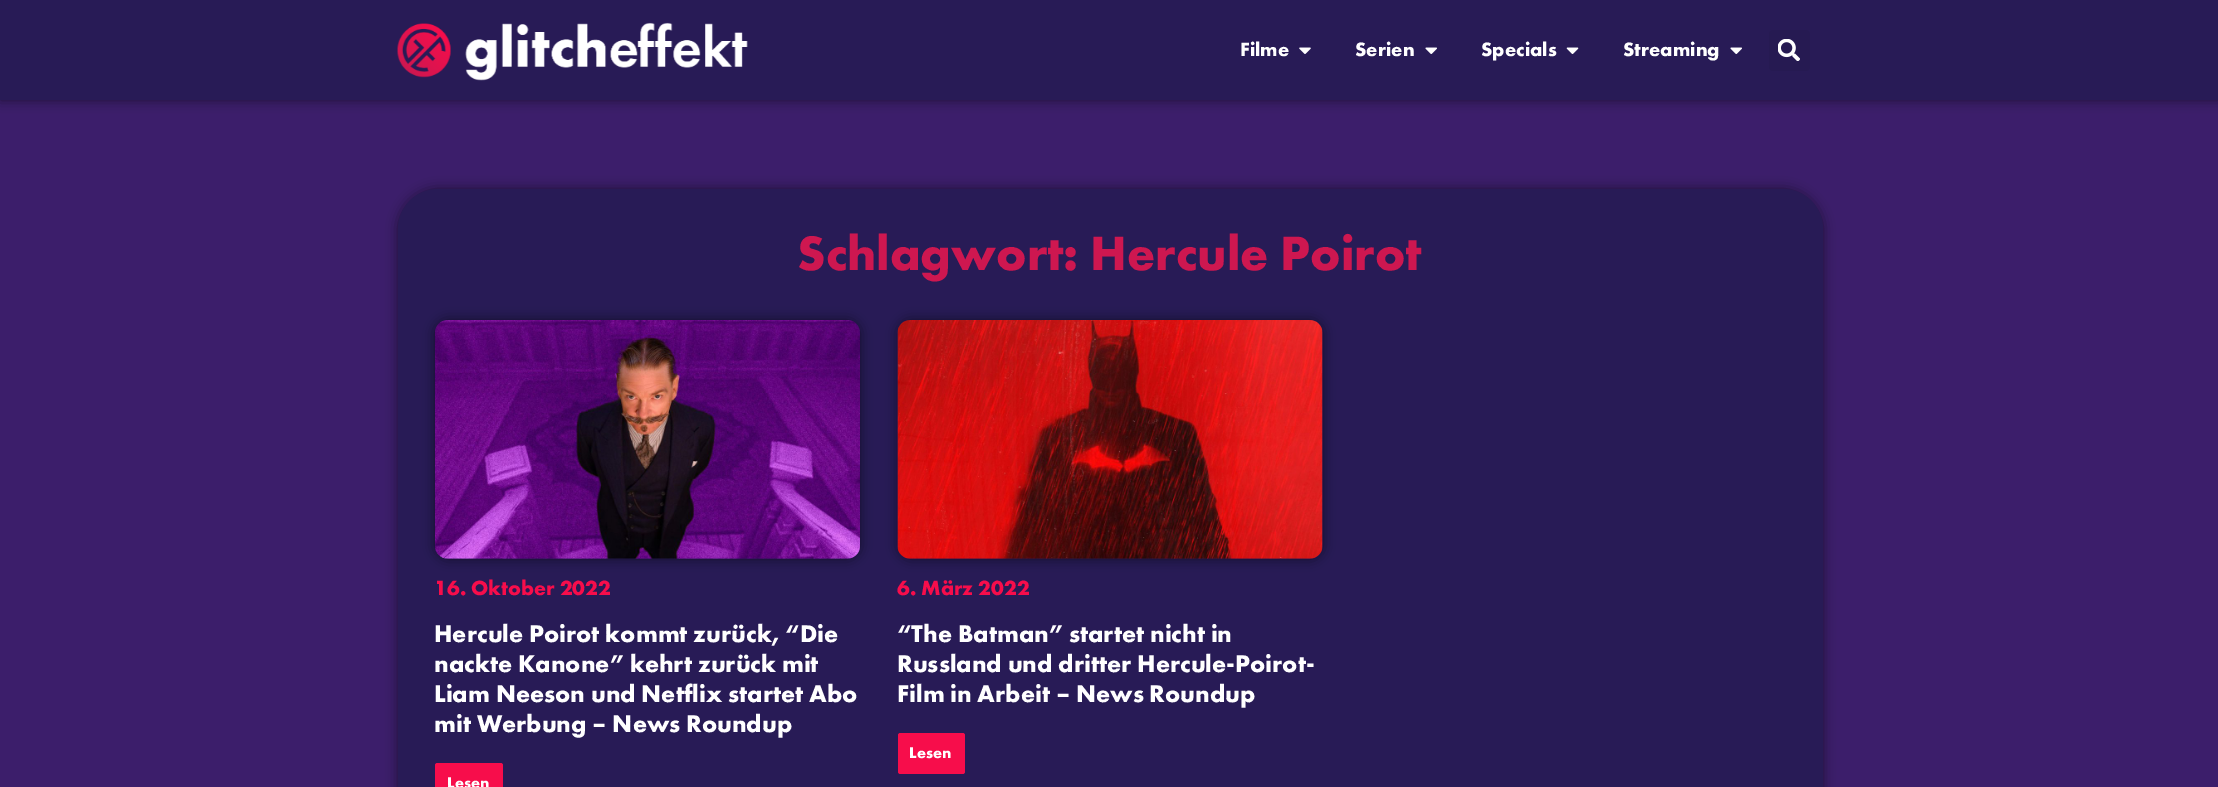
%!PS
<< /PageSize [2218 787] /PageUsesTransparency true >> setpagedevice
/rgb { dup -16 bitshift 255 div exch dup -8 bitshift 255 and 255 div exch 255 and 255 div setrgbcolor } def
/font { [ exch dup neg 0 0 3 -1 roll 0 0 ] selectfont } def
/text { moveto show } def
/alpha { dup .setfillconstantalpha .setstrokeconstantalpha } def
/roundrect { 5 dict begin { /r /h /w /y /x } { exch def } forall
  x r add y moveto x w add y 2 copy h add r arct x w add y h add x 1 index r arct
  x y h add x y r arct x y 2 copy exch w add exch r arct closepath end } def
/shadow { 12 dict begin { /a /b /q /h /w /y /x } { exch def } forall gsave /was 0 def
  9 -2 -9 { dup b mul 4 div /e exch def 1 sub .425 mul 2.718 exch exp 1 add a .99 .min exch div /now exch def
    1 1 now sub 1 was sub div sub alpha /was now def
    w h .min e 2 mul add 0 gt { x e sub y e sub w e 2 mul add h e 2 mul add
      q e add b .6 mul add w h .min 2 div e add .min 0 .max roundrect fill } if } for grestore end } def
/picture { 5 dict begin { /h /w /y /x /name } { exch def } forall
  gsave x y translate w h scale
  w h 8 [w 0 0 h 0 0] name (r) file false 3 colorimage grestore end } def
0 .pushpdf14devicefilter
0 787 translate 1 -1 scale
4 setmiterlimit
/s1 { /FuturaPT-Bold 20 font 16#FFFFFF rgb } def
/s2 { /FuturaPT-Bold 50 font 16#CE1750 rgb } def
/s3 { /FuturaPT-Bold 21.25 font 16#F70D4B rgb } def
/s4 { /FuturaPT-Bold 25 font 16#FFFFFF rgb } def
/s5 { /FuturaPT-Bold 16 font 16#FFFFFF rgb } def
16#3C1E6B rgb
0 0 2218 787 rectfill
16#000000 rgb
0 0 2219 100 0 6 0.5 shadow
16#281B56 rgb
0 0 2218 100 rectfill
(pic1.raw) 397 22 351 59 picture
s1
(Filme) 1240 56 text
(pic2.raw) 1299 47 12 7 picture
(Serien) 1355 56 text
(pic3.raw) 1425 47 12 7 picture
(Specials) 1481 56 text
(pic4.raw) 1566 47 13 7 picture
(Streaming) 1623 56 text
(pic3.raw) 1730 47 12 7 picture
16#261A52 rgb
1769 30 41 41 4 roundrect fill
(pic5.raw) 1778 39 22 22 picture
16#000000 rgb
398 189 1425 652 40 6 0.5 shadow
16#281B56 rgb
398 189 1425 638 40 roundrect fill
s2
(Schlagwort: Hercule Poirot) 797 270 text
16#000000 rgb
435 320 425 239 13 6 0.5 shadow
(pic6.raw) 435 320 425 239 picture
s3
(16. Oktober 2022) 434 595 text
s4
(Hercule Poirot kommt zurück, “Die) 434 642 text
(nackte Kanone” kehrt zurück mit) 434 672 text
(Liam Neeson und Netflix startet Abo) 434 702 text
(mit Werbung – News Roundup) 434 732 text
16#F70D4B rgb
435 763 68 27 2.5 roundrect fill
s5
(Lesen) 447 788 text
16#000000 rgb
898 320 425 239 13 6 0.5 shadow
(pic7.raw) 897 320 426 239 picture
s3
(6. März 2022) 897 595 text
s4
(“The Batman” startet nicht in) 897 642 text
(Russland und dritter Hercule-Poirot-) 897 672 text
(Film in Arbeit – News Roundup) 897 702 text
16#F70D4B rgb
898 733 67 41 2.5 roundrect fill
s5
(Lesen) 909 758 text
.poppdf14devicefilter showpage
